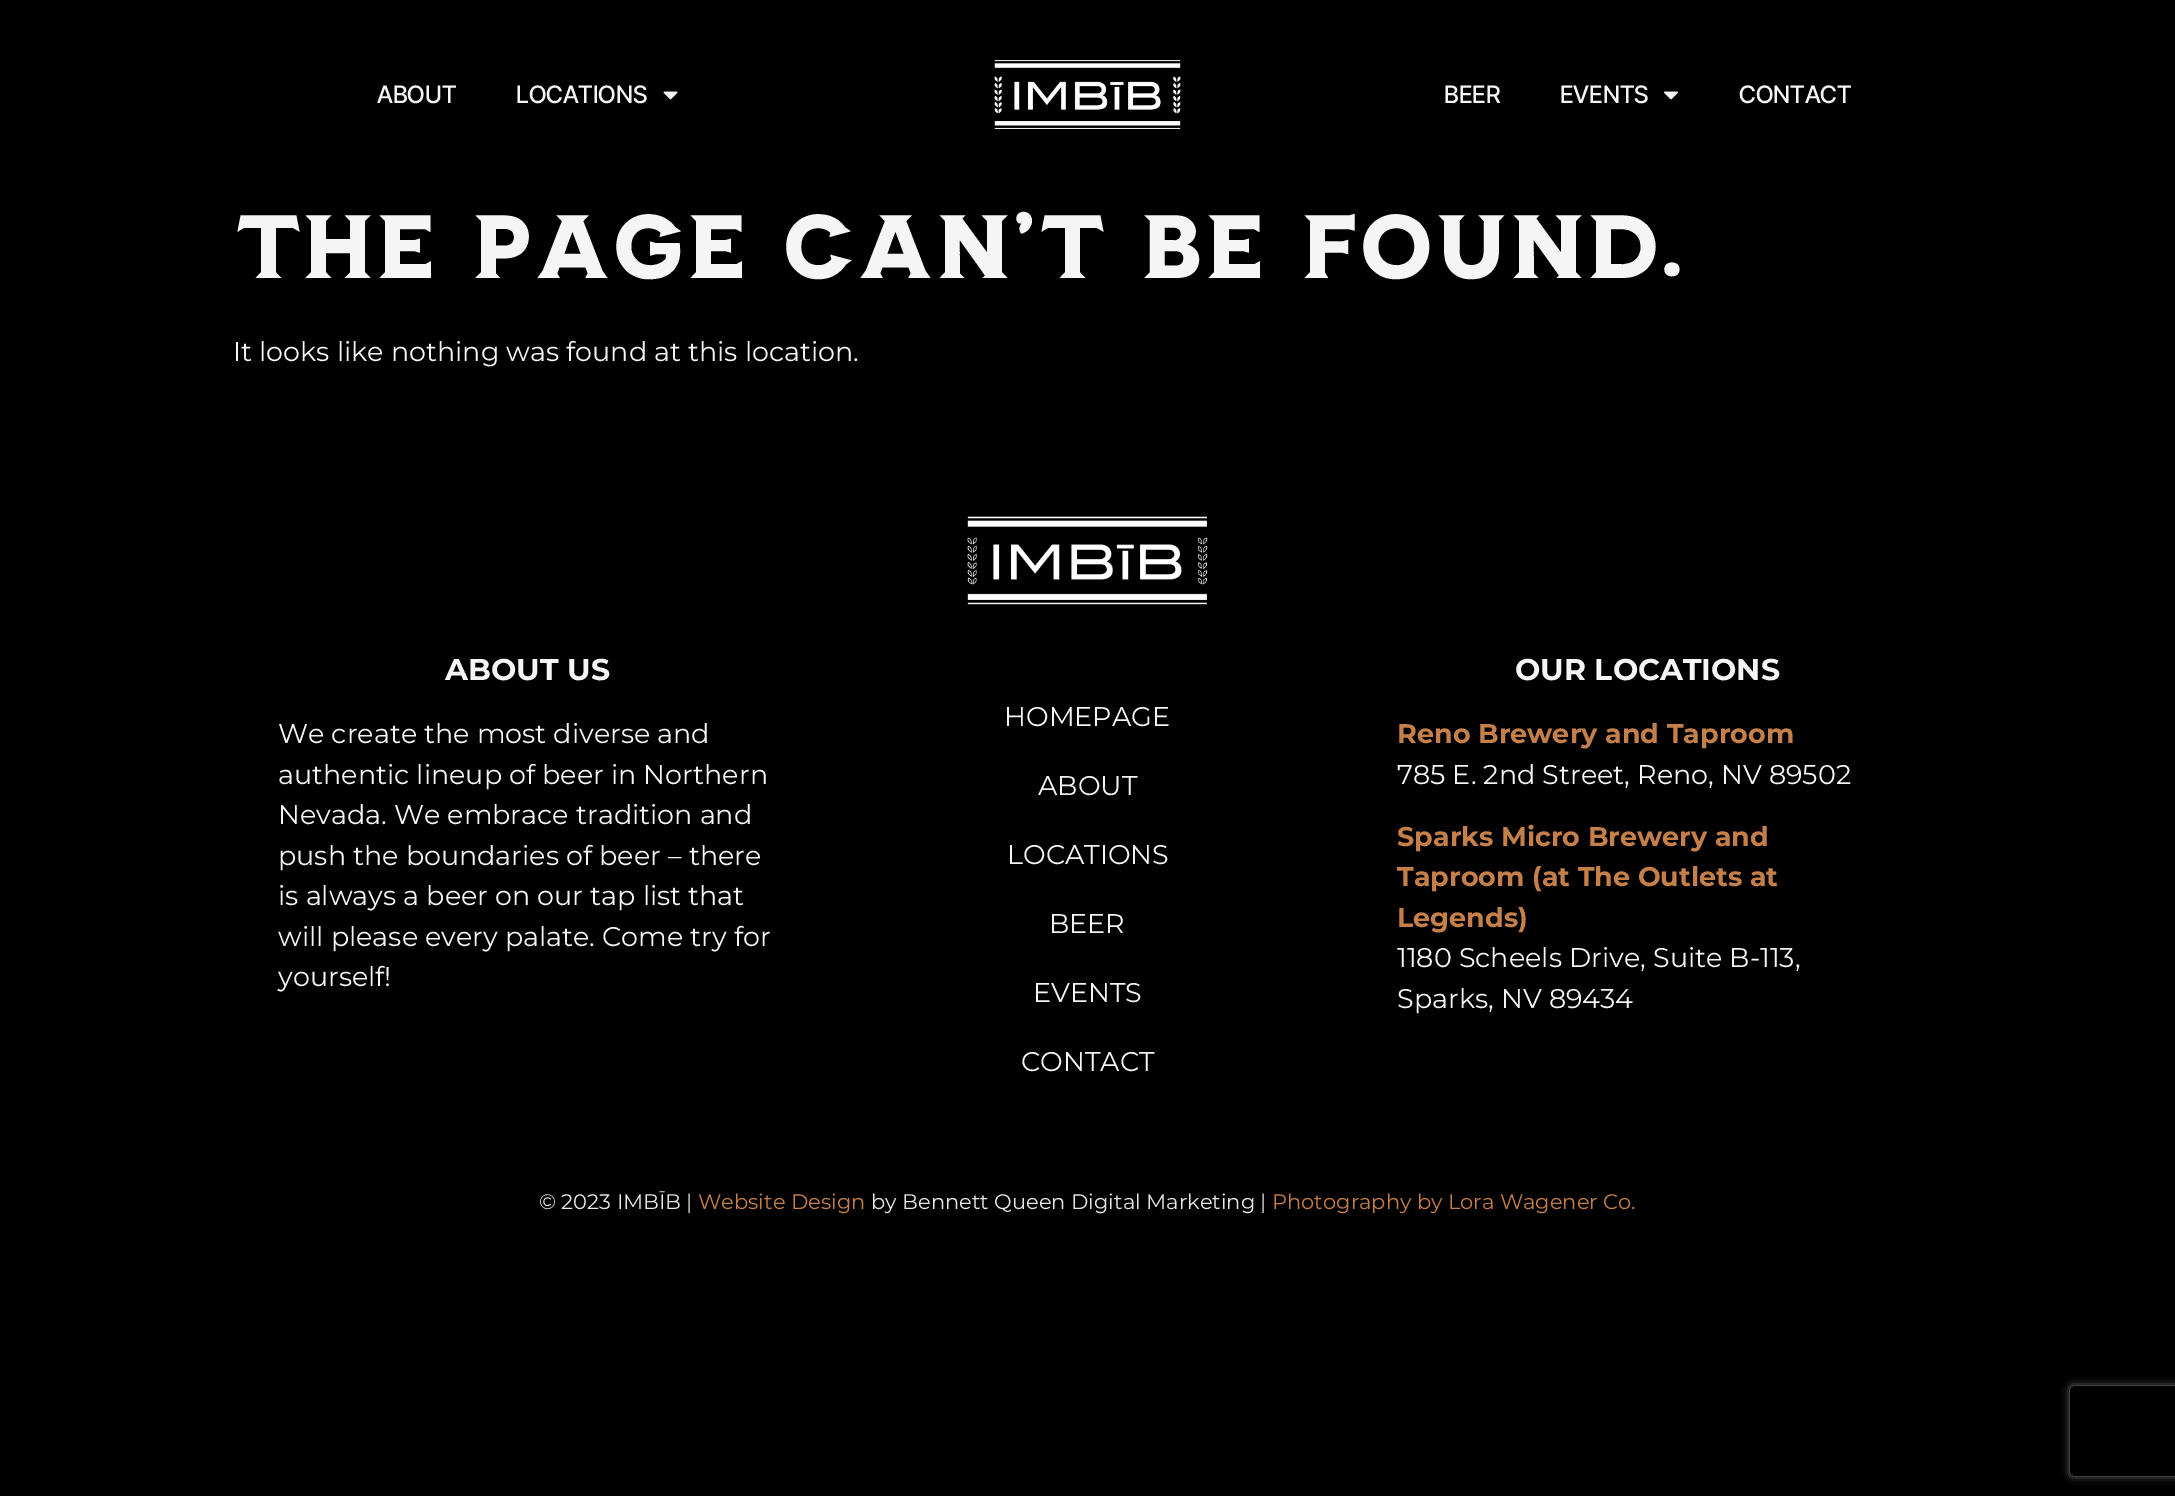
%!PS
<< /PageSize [2175 1496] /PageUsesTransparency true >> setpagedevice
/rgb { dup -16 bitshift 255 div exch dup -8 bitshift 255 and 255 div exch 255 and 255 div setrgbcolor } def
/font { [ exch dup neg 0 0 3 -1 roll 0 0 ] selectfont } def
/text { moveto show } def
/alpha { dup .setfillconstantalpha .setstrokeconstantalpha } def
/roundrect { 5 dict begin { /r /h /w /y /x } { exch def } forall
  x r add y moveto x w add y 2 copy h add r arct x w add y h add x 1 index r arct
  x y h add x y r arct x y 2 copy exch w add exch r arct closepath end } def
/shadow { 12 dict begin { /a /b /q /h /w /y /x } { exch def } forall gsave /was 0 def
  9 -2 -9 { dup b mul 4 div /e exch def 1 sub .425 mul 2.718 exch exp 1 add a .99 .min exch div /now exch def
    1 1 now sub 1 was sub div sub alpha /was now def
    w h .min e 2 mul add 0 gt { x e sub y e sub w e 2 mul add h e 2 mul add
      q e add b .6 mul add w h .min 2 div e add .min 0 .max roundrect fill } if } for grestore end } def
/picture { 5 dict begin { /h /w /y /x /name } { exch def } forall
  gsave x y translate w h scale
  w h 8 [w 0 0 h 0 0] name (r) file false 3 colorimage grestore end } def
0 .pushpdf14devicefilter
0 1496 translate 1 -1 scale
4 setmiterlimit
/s1 { /InterTight-Medium 24 font 16#F5F5F5 rgb } def
/s2 { /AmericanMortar-Regular 90 font 16#F5F5F5 rgb } def
/s3 { /Montserrat-Regular 27 font 16#F5F5F5 rgb } def
/s4 { /Montserrat-Bold 30 font 16#F5F5F5 rgb } def
/s5 { /Montserrat-Bold 27 font 16#C57F48 rgb } def
/s6 { /Montserrat-Regular 21 font 16#E8E7EA rgb } def
/s7 { /Montserrat-Regular 21 font 16#C57F48 rgb } def
16#000000 rgb
0 0 2175 1496 rectfill
s1
(ABOUT) 377 103 text
(LOCATIONS) 516 103 text
(pic1.raw) 663 91 15 9 picture
(pic2.raw) 994 60 187 69 picture
(BEER) 1444 103 text
(EVENTS) 1560 103 text
(pic3.raw) 1664 91 14 9 picture
(CONTACT) 1739 103 text
s2
(THE PAGE CAN’T BE FOUND.) 233 278 text
s3
(It looks like nothing was found at this location.) 233 361 text
s4
(ABOUT US) 445 680 text
s3
(We create the most diverse and) 278 743 text
(authentic lineup of beer in Northern) 278 784 text
(Nevada. We embrace tradition and) 278 824 text
(push the boundaries of beer – there) 278 865 text
(is always a beer on our tap list that) 278 905 text
(will please every palate. Come try for) 278 946 text
(yourself!) 278 986 text
(pic4.raw) 967 516 241 89 picture
(HOMEPAGE) 1004 726 text
(ABOUT) 1038 795 text
(LOCATIONS) 1007 864 text
(BEER) 1049 933 text
(EVENTS) 1033 1002 text
(CONTACT) 1021 1071 text
s4
(OUR LOCATIONS) 1515 680 text
s5
(Reno Brewery and Taproom) 1397 743 text
s3
(785 E. 2nd Street, Reno, NV 89502) 1397 784 text
s5
(Sparks Micro Brewery and) 1397 846 text
(Taproom \(at The Outlets at) 1397 886 text
(Legends\)) 1397 927 text
s3
(1180 Scheels Drive, Suite B-113,) 1397 967 text
(Sparks, NV 89434) 1397 1008 text
s6
(© 2023 IMBĪB |) 539 1209 text
s7
(Website Design) 698 1209 text
s6
(by Bennett Queen Digital Marketing |) 871 1209 text
s7
(Photography by Lora Wagener Co.) 1272 1209 text
gsave
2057 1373 moveto 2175 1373 lineto 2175 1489 lineto 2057 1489 lineto closepath 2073 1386 moveto 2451 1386 lineto 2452.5 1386 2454 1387.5 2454 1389 curveto 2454 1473 lineto 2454 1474.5 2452.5 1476 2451 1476 curveto 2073 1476 lineto 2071.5 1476 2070 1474.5 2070 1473 curveto 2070 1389 lineto 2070 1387.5 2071.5 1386 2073 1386 curveto closepath eoclip newpath
16#808080 rgb
2070 1386 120 90 3 4 1 shadow
grestore
.poppdf14devicefilter showpage
